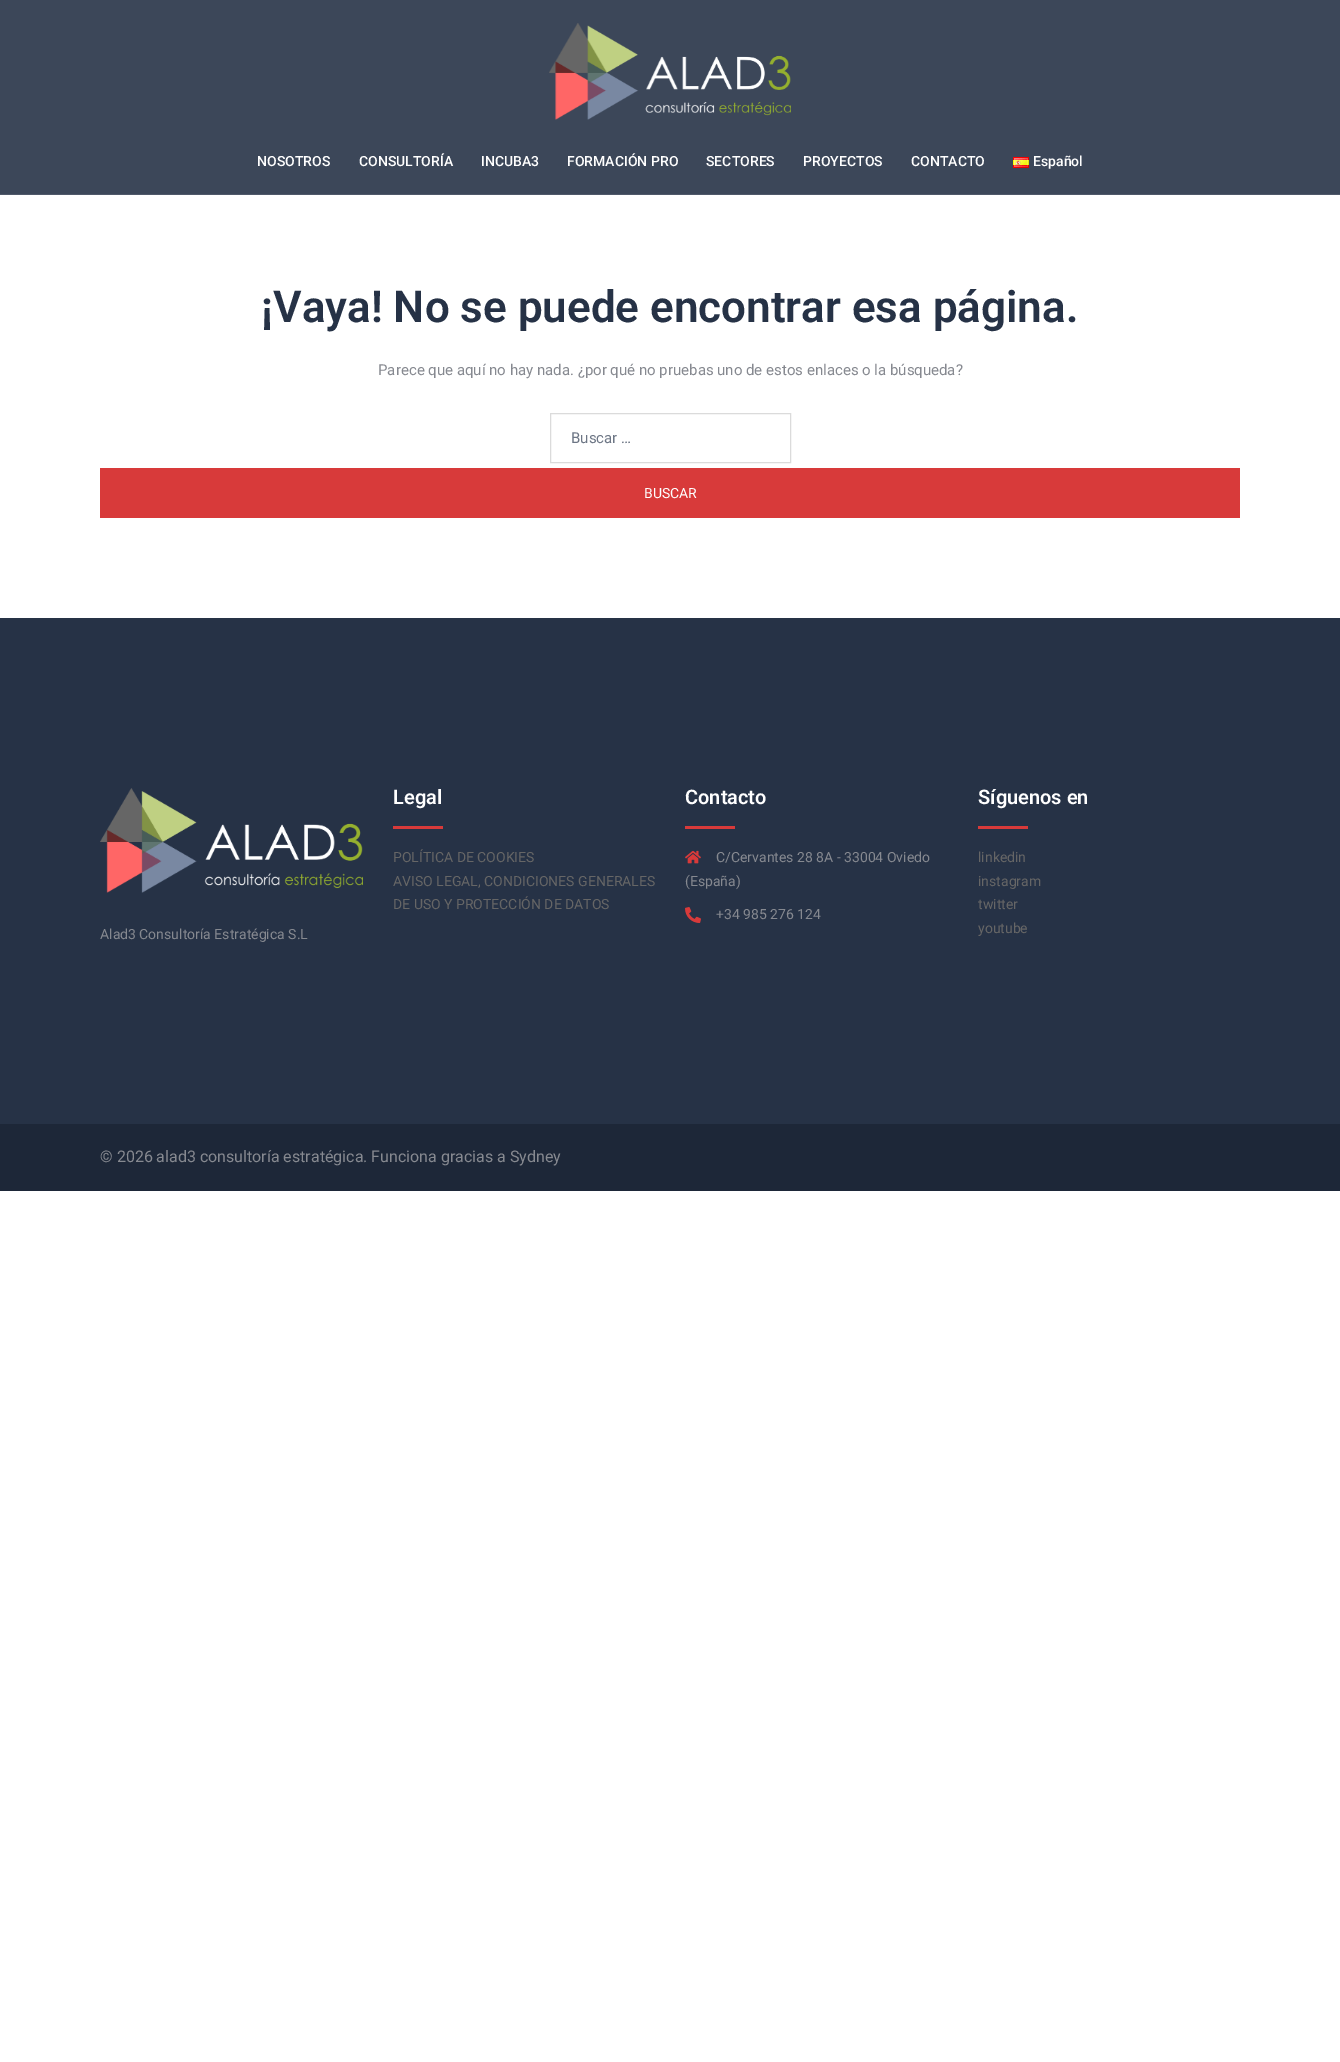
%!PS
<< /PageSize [1340 2062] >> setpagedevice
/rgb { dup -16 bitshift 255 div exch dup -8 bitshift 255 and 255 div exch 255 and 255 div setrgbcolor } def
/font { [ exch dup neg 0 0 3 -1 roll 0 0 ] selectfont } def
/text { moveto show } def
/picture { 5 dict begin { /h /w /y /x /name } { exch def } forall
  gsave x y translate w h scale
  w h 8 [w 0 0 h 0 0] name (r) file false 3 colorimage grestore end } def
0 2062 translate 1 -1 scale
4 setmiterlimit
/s1 { /Roboto-Medium 14 font 16#FFFFFF rgb } def
/s2 { /Roboto-SemiBold 44 font 16#263246 rgb } def
/s3 { /Roboto-Regular 15 font 16#868990 rgb } def
/s4 { /Roboto-Regular 15 font 16#6D7685 rgb } def
/s5 { /Roboto-Regular 14 font 16#FFFFFF rgb } def
/s6 { /Roboto-Regular 14 font 16#868990 rgb } def
/s7 { /Roboto-SemiBold 20 font 16#FFFFFF rgb } def
/s8 { /Roboto-Regular 14 font 16#666666 rgb } def
/s9 { /Roboto-Regular 16 font 16#868990 rgb } def
16#FFFFFF rgb
0 0 1340 2062 rectfill
16#3C4759 rgb
0 0 1340 194 rectfill
16#50596A rgb
0 194 1340 1 rectfill
(pic1.raw) 549 23 242 97 picture
s1
(NOSOTROS) 257 166 text
(CONSULTORÍA) 359 166 text
(INCUBA3) 481 166 text
(FORMACIÓN PRO) 567 166 text
(SECTORES) 706 166 text
(PROYECTOS) 803 166 text
(CONTACTO) 911 166 text
(pic2.raw) 1013 157 16 11 picture
(Español) 1033 166 text
s2
(¡Vaya! No se puede encontrar esa página.) 261 322 text
s3
(Parece que aquí no hay nada. ¿por qué no pruebas uno de estos enlaces o la búsqueda?) 378 375 text
16#DBDBDB rgb
550.5 413.5 240 49 rectstroke
s4
(Buscar …) 571 443 text
16#D83A3A rgb
100 468 1140 50 rectfill
s5
(BUSCAR) 644 498 text
16#263246 rgb
0 618 1340 506 rectfill
(pic3.raw) 100 788 263 105 picture
s6
(Alad3 Consultoría Estratégica S.L) 100 939 text
s7
(Legal) 393 804 text
16#D83A3A rgb
393 826 50 3 rectfill
s8
(POLÍTICA DE COOKIES) 393 862 text
(AVISO LEGAL, CONDICIONES GENERALES) 393 886 text
(DE USO Y PROTECCIÓN DE DATOS) 393 909 text
s7
(Contacto) 685 804 text
16#D83A3A rgb
685 826 50 3 rectfill
(pic4.raw) 685 850 16 14 picture
s6
(C/Cervantes 28 8A - 33004 Oviedo) 716 862 text
(\(España\)) 685 886 text
(pic5.raw) 685 907 16 16 picture
(+34 985 276 124) 716 919 text
s7
(Síguenos en) 978 804 text
16#D83A3A rgb
978 826 50 3 rectfill
s8
(linkedin) 978 862 text
(instagram) 978 886 text
(twitter) 978 909 text
(youtube) 978 933 text
16#1D2738 rgb
0 1124 1340 67 rectfill
s9
(© 2026 alad3 consultoría estratégica. Funciona gracias a Sydney) 100 1162 text
showpage
